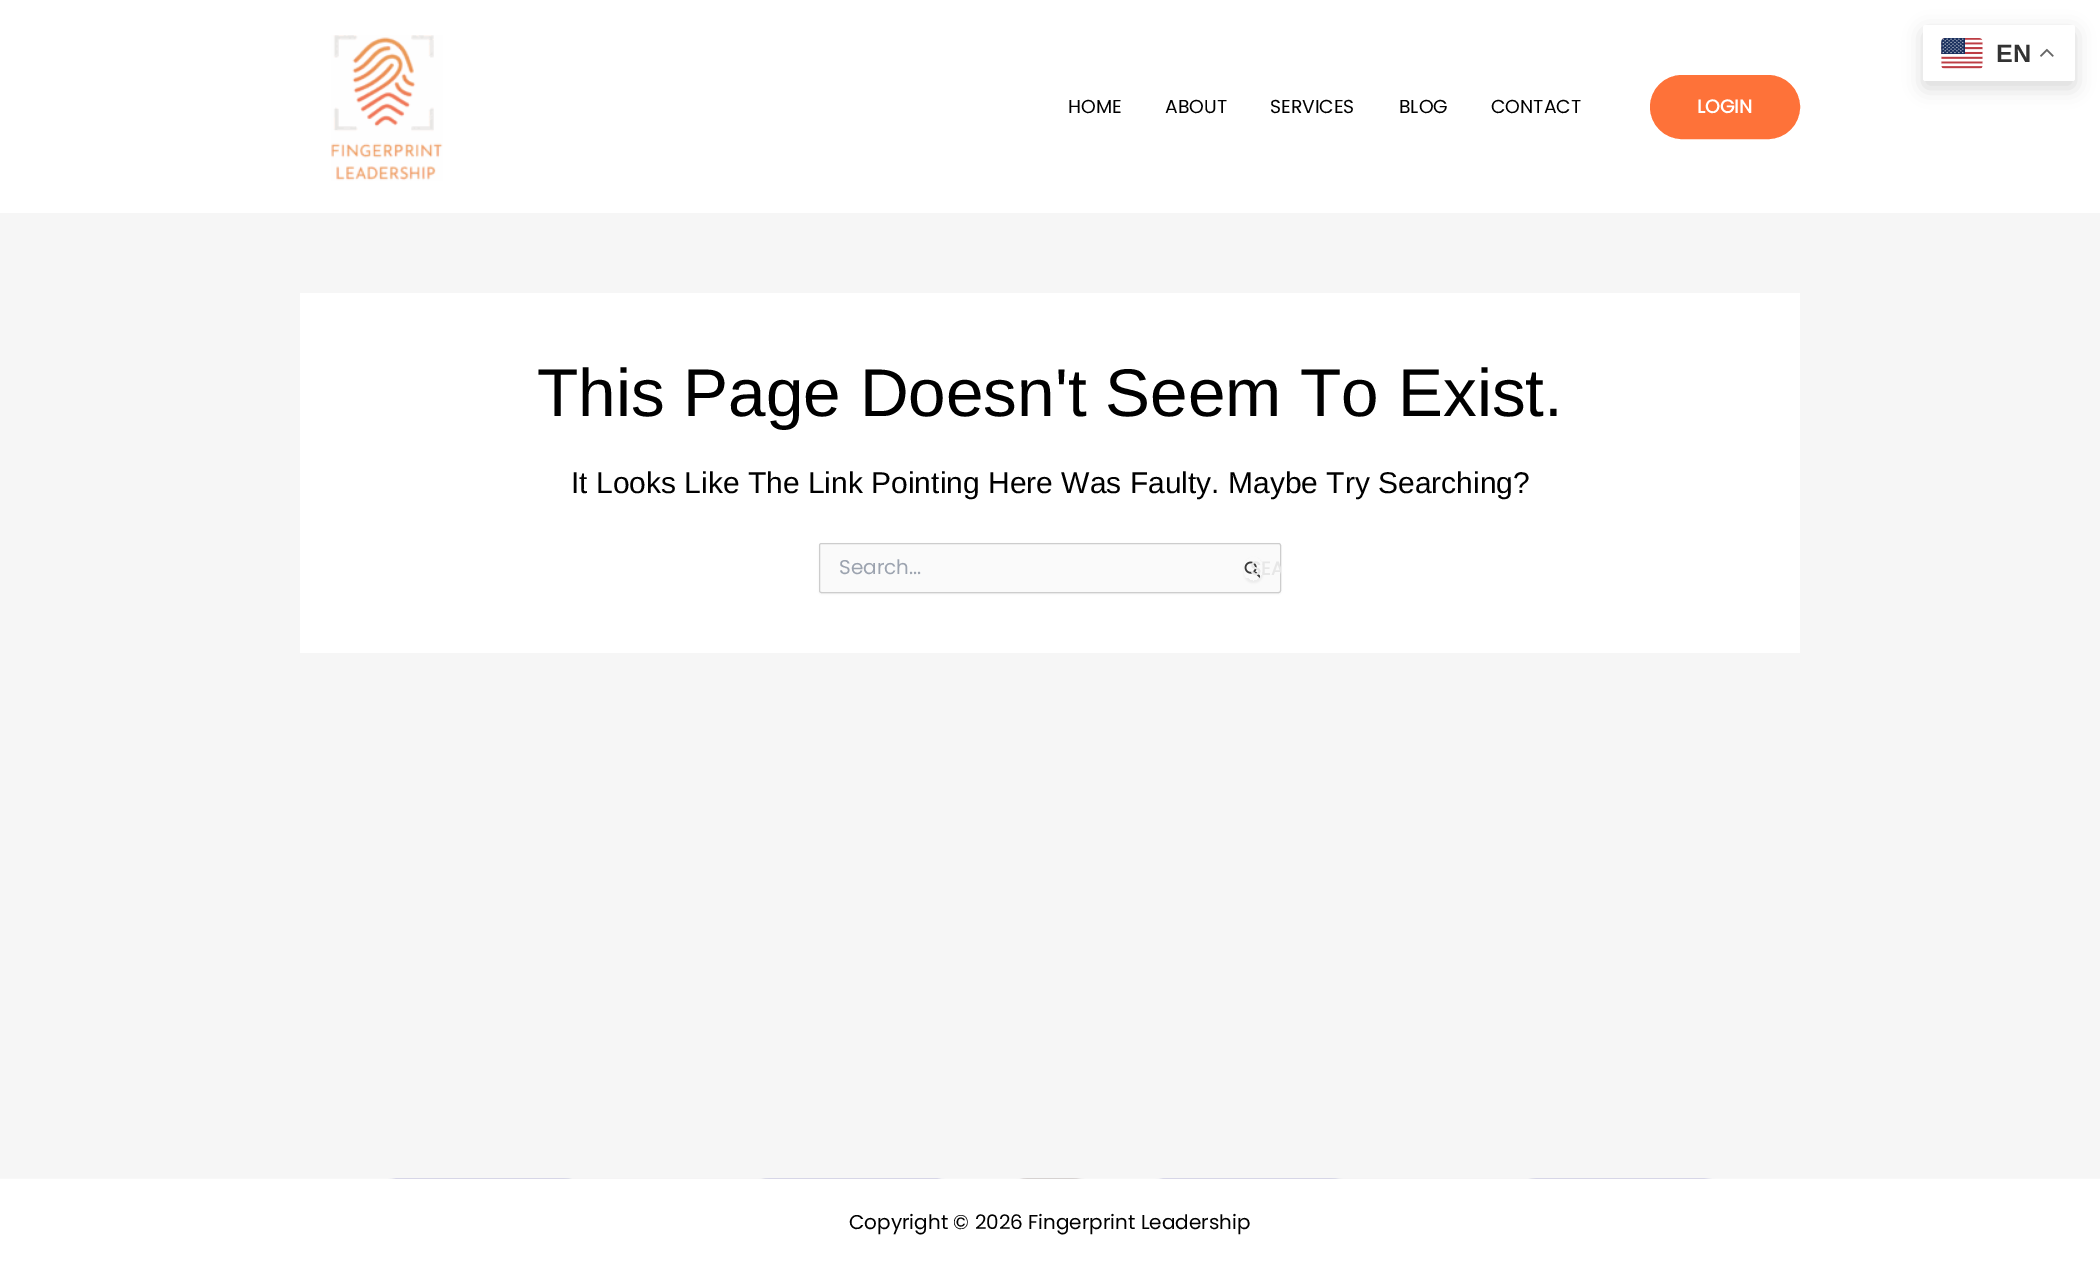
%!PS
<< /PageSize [2100 1266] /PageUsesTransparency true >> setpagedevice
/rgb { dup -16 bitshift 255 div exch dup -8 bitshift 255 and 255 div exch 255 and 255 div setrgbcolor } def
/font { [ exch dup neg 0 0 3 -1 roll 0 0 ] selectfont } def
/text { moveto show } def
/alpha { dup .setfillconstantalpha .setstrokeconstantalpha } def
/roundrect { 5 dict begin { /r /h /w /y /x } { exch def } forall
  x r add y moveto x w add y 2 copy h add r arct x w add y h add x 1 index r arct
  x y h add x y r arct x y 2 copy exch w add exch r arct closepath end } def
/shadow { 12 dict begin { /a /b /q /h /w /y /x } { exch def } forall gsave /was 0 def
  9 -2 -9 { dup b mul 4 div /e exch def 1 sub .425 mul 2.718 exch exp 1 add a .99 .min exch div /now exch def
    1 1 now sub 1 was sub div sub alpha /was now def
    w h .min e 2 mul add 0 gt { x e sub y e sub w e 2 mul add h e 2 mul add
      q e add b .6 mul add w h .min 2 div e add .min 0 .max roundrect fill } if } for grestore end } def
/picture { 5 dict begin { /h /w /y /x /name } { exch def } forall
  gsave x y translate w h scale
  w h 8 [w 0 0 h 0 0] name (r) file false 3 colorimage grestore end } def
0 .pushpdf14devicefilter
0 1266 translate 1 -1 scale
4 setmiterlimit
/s1 { /LiberationSans-Bold 25 font 16#333333 rgb } def
/s2 { /Poppins-Regular 18.75 font 16#000000 rgb } def
/s3 { /Poppins-Bold 18.75 font 16#FFFFFF rgb } def
/s4 { /LiberationSans-Regular 67.5 font 16#000000 rgb } def
/s5 { /LiberationSans-Regular 30 font 16#000000 rgb } def
/s6 { /Poppins-Regular 20 font 16#9CA3AF rgb } def
/s7 { /Poppins-Bold 18.75 font 16#E7E7E7 rgb } def
/s8 { /Poppins-Regular 20 font 16#000000 rgb } def
16#F6F6F6 rgb
0 0 2100 1266 rectfill
16#FFFFFF rgb
0 0 2100 213 rectfill
16#000000 rgb
1923 31 152 57 2.5 9.5 0.15 shadow
16#FFFFFF rgb
1923 25 152 56 2.5 roundrect fill
(pic1.raw) 1941 38 42 31 picture
s1
(EN) 1996 62 text
(pic2.raw) 2040 48 14 9 picture
(pic3.raw) 331 35 112 146 picture
s2
(HOME) 1068 113 text
(ABOUT) 1165 113 text
(SERVICES) 1270 113 text
(BLOG) 1399 113 text
(CONTACT) 1491 113 text
16#FE7239 rgb
1651.5 76.5 147 61 30.5 roundrect gsave fill grestore
3 setlinewidth
stroke
s3
(LOGIN) 1697 113 text
300 293 1500 360 rectfill
s4
(This Page Doesn't Seem To Exist.) 537 416 text
s5
(It Looks Like The Link Pointing Here Was Faulty. Maybe Try Searching?) 571 493 text
819 544 462 50 2.5 1 0.05 shadow
16#FAFAFA rgb
819.5 543.5 461 49 2 roundrect gsave fill grestore
16#CDCDCD rgb
1 setlinewidth
stroke
s6
(Search...) 839 574 text
gsave
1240 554 moveto 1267 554 lineto 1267 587 lineto 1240 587 lineto closepath 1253.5 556 moveto 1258.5 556 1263 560.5 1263 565.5 curveto 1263 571.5 lineto 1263 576.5 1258.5 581 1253.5 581 curveto 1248.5 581 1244 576.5 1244 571.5 curveto 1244 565.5 lineto 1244 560.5 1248.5 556 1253.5 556 curveto closepath eoclip newpath
16#000000 rgb
1244 558 19 25 9.5 1 0.05 shadow
grestore
(pic4.raw) 1244 561 16 17 picture
gsave
1225 543 56 51 2.5 roundrect clip newpath
s7
(SEA) 1250 575 text
grestore
(pic5.raw) 0 1178 2100 1 picture
16#FFFFFF rgb
0 1179 2100 87 rectfill
s8
(Copyright © 2026 Fingerprint Leadership) 849 1229 text
.poppdf14devicefilter showpage
